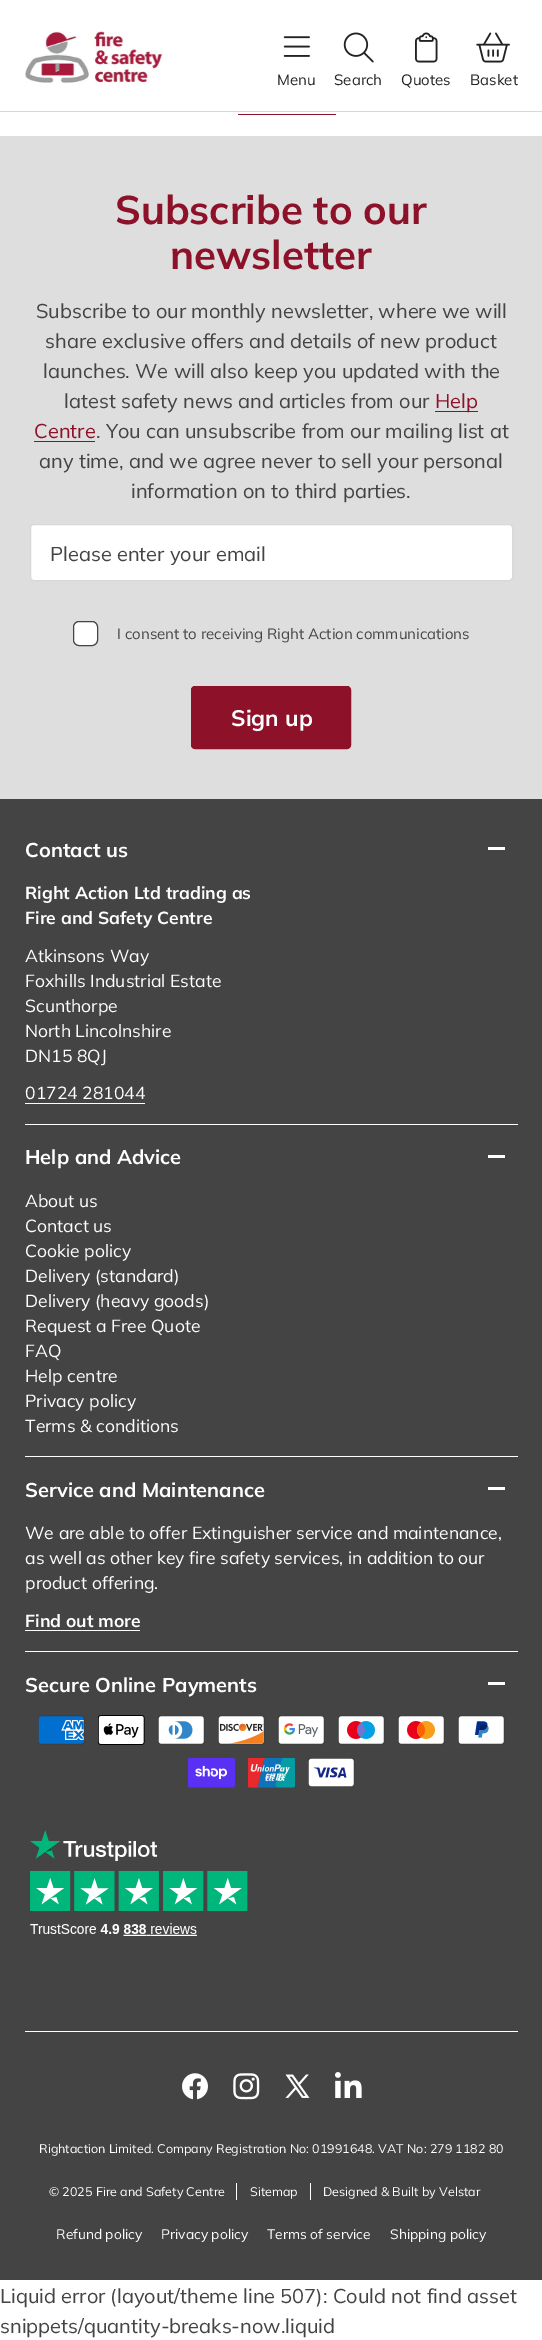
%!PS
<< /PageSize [542 2340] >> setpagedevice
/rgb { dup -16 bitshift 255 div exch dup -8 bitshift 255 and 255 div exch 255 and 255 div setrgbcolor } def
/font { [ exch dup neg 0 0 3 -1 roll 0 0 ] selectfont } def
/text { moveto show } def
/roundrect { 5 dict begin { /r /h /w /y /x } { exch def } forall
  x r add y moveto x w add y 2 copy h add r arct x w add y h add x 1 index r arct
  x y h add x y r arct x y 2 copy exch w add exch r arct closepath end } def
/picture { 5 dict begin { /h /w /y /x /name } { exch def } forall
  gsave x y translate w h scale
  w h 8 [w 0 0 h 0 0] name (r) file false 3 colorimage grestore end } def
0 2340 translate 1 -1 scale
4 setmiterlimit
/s1 { /Muli-Regular 15 font 16#222222 rgb } def
/s2 { /Muli-Bold 40 font 16#8D1229 rgb } def
/s3 { /Muli-Regular 20 font 16#444444 rgb } def
/s4 { /Muli-Regular 20 font 16#8D1229 rgb } def
/s5 { /Muli-Regular 15 font 16#444444 rgb } def
/s6 { /Muli-Bold 22.5 font 16#FFFFFF rgb } def
/s7 { /Muli-Bold 20 font 16#FFFFFF rgb } def
/s8 { /Muli-Bold 17.5 font 16#FFFFFF rgb } def
/s9 { /Muli-Regular 17.5 font 16#FFFFFF rgb } def
/s10 { /Muli-Regular 12.5 font 16#FFFFFF rgb } def
/s11 { /Muli-Regular 13.75 font 16#FFFFFF rgb } def
16#FFFFFF rgb
0 0 542 2340 rectfill
16#D8D8D8 rgb
0 111 542 1 rectfill
(pic1.raw) 25 31 138 52 picture
(pic2.raw) 283 36 27 21 picture
s1
(Menu) 277 85 text
(pic3.raw) 343 32 31 31 picture
(Search) 334 85 text
(pic4.raw) 415 32 23 31 picture
(Quotes) 401 85 text
(pic5.raw) 476 32 34 31 picture
(Basket) 470 85 text
16#8D1229 rgb
238 114 98 1 rectfill
16#DEDEDE rgb
0 136 542 663 rectfill
s2
(Subscribe to our) 115 224 text
(newsletter) 170 269 text
s3
(Subscribe to our monthly newsletter, where we will) 36 318 text
(share exclusive offers and details of new product) 45 348 text
(launches. We will also keep you updated with the) 43 378 text
(latest safety news and articles from our) 64 408 text
16#8D1229 rgb
435 411 43 1 rectfill
(Help) 435 408 text
(Centre) 34 438 text
34 441 61 1 rectfill
s3
(. You can unsubscribe from our mailing list at) 96 438 text
(any time, and we agree never to sell your personal) 39 468 text
(information on to third parties.) 131 498 text
16#FFFFFF rgb
30.5 524.5 482 56 3.5 roundrect gsave fill grestore
16#D8D8D8 rgb
stroke
gsave
50 540 443 25 rectclip
s3
(Please enter your email) 50 561 text
grestore
16#FFFFFF rgb
73.5 621.5 24 24 5.5 roundrect gsave fill grestore
16#444444 rgb
stroke
s5
(I consent to receiving Right Action communications) 117 639 text
16#8D1229 rgb
191.5 686.5 159 62 3.5 roundrect gsave fill grestore
stroke
s6
(Sign up) 231 726 text
16#444444 rgb
0 799 542 1481 rectfill
16#FFFFFF rgb
25 1124 493 1 rectfill
s7
(Contact us) 25 857 text
488 847 17 3 rectfill
s8
(Right Action Ltd trading as) 25 899 text
(Fire and Safety Centre) 25 924 text
s9
(Atkinsons Way) 25 962 text
(Foxhills Industrial Estate) 25 987 text
(Scunthorpe) 25 1012 text
(North Lincolnshire) 25 1037 text
(DN15 8QJ) 25 1062 text
(01724 281044) 25 1099 text
25 1103 120 1 rectfill
25 1456 493 1 rectfill
s7
(Help and Advice) 25 1164 text
488 1155 17 3 rectfill
s9
(About us) 25 1207 text
(Contact us) 25 1232 text
(Cookie policy) 25 1257 text
(Delivery \(standard\)) 25 1282 text
(Delivery \(heavy goods\)) 25 1307 text
(Request a Free Quote) 25 1332 text
(FAQ) 25 1357 text
(Help centre) 25 1382 text
(Privacy policy) 25 1407 text
(Terms & conditions) 25 1432 text
25 1651 493 1 rectfill
s7
(Service and Maintenance) 25 1497 text
488 1487 17 3 rectfill
s9
(We are able to offer Extinguisher service and maintenance,) 25 1539 text
(as well as other key fire safety services, in addition to our) 25 1564 text
(product offering.) 25 1589 text
s8
(Find out more) 25 1627 text
25 1630 115 1 rectfill
25 2031 493 1 rectfill
s7
(Secure Online Payments) 25 1692 text
488 1682 17 3 rectfill
(pic6.raw) 38 1715 47 30 picture
(pic7.raw) 98 1715 47 30 picture
(pic8.raw) 158 1715 47 30 picture
(pic9.raw) 218 1715 47 30 picture
(pic10.raw) 278 1715 47 30 picture
(pic11.raw) 338 1715 47 30 picture
(pic12.raw) 398 1715 47 30 picture
(pic13.raw) 458 1715 47 30 picture
(pic14.raw) 188 1758 47 30 picture
(pic15.raw) 248 1758 47 30 picture
(pic16.raw) 308 1758 47 29 picture
(pic17.raw) 30 1830 218 106 picture
(pic18.raw) 182 2073 26 27 picture
(pic19.raw) 233 2073 27 27 picture
(pic20.raw) 285 2074 25 24 picture
(pic21.raw) 335 2072 27 26 picture
s10
(Rightaction Limited. Company Registration No: 01991648. VAT No: 279 1182 80) 39 2153 text
(© 2025 Fire and Safety Centre) 49 2196 text
236 2183 1 17 rectfill
(Sitemap) 250 2196 text
310 2183 1 17 rectfill
(Designed & Built by Velstar) 323 2196 text
s11
(Refund policy) 56 2239 text
(Privacy policy) 161 2239 text
(Terms of service) 267 2239 text
(Shipping policy) 390 2239 text
s3
(Liquid error \(layout/theme line 507\): Could not find asset) 0 2303 text
(snippets/quantity-breaks-now.liquid) 0 2333 text
showpage
